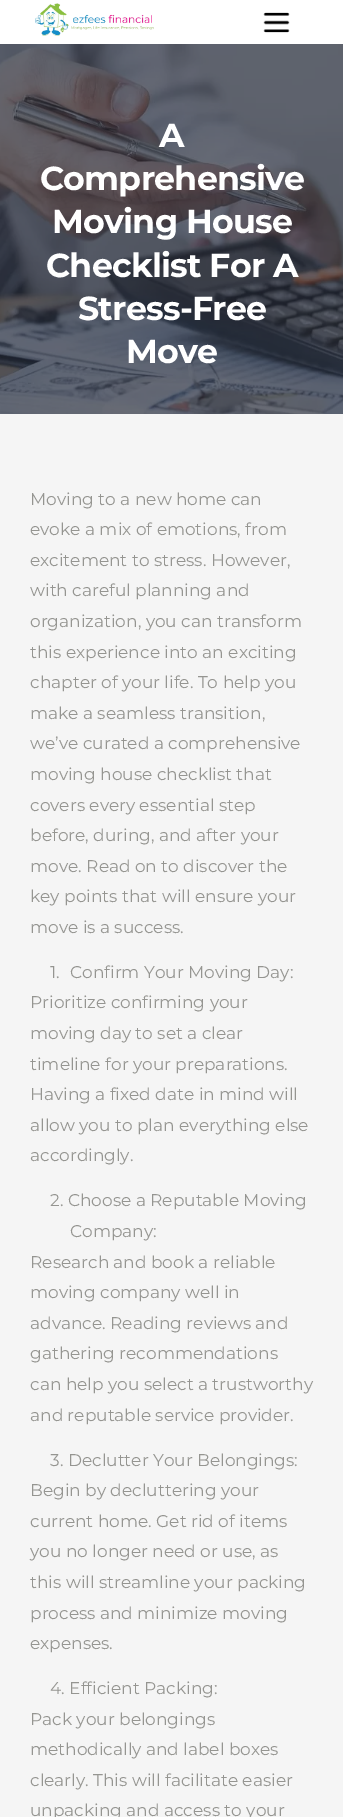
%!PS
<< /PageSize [343 1817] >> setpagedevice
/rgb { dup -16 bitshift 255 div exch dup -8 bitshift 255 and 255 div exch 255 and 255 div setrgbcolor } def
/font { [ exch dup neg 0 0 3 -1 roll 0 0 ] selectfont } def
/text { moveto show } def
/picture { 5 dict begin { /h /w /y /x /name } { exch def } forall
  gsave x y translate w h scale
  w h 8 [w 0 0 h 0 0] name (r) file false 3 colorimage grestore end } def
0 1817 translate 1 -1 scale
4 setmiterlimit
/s1 { /Montserrat-Regular 17 font 16#959591 rgb } def
16#F5F5F5 rgb
0 0 343 1817 rectfill
16#FFFFFF rgb
0 0 343 44 rectfill
(pic1.raw) 35 3 119 33 picture
(pic2.raw) 263 12 27 21 picture
16#2A2C38 rgb
0 44 343 370 rectfill
(pic3.raw) 0 44 343 370 picture
/Montserrat-Bold 33.25 font
16#FFFFFF rgb
159 147 moveto -0.75 0 (A) ashow
40 190 moveto -0.75 0 (Comprehensive) ashow
52 233 moveto -0.75 0 (Moving House) ashow
46 277 moveto -0.75 0 (Checklist For A) ashow
78 320 moveto -0.75 0 (Stress-Free) ashow
126 363 moveto -0.75 0 (Move) ashow
s1
(Moving to a new home can) 30 505 text
(evoke a mix of emotions, from) 30 535 text
(excitement to stress. However,) 30 566 text
(with careful planning and) 30 596 text
(organization, you can transform) 30 627 text
(this experience into an exciting) 30 658 text
(chapter of your life. To help you) 30 688 text
(make a seamless transition,) 30 719 text
(we’ve curated a comprehensive) 30 749 text
(moving house checklist that) 30 780 text
(covers every essential step) 30 811 text
(before, during, and after your) 30 841 text
(move. Read on to discover the) 30 872 text
(key points that will ensure your) 30 902 text
(move is a success.) 30 933 text
(1.) 50 978 text
(Confirm Your Moving Day:) 70 978 text
(Prioritize confirming your) 30 1008 text
(moving day to set a clear) 30 1039 text
(timeline for your preparations.) 30 1070 text
(Having a fixed date in mind will) 30 1100 text
(allow you to plan everything else) 30 1131 text
(accordingly.) 30 1161 text
(2. Choose a Reputable Moving) 50 1206 text
(Company:) 70 1237 text
(Research and book a reliable) 30 1268 text
(moving company well in) 30 1298 text
(advance. Reading reviews and) 30 1329 text
(gathering recommendations) 30 1359 text
(can help you select a trustworthy) 30 1390 text
(and reputable service provider.) 30 1421 text
(3. Declutter Your Belongings:) 50 1466 text
(Begin by decluttering your) 30 1496 text
(current home. Get rid of items) 30 1527 text
(you no longer need or use, as) 30 1557 text
(this will streamline your packing) 30 1588 text
(process and minimize moving) 30 1619 text
(expenses.) 30 1649 text
(4. Efficient Packing:) 50 1694 text
(Pack your belongings) 30 1725 text
(methodically and label boxes) 30 1755 text
(clearly. This will facilitate easier) 30 1786 text
(unpacking and access to your) 30 1816 text
showpage
